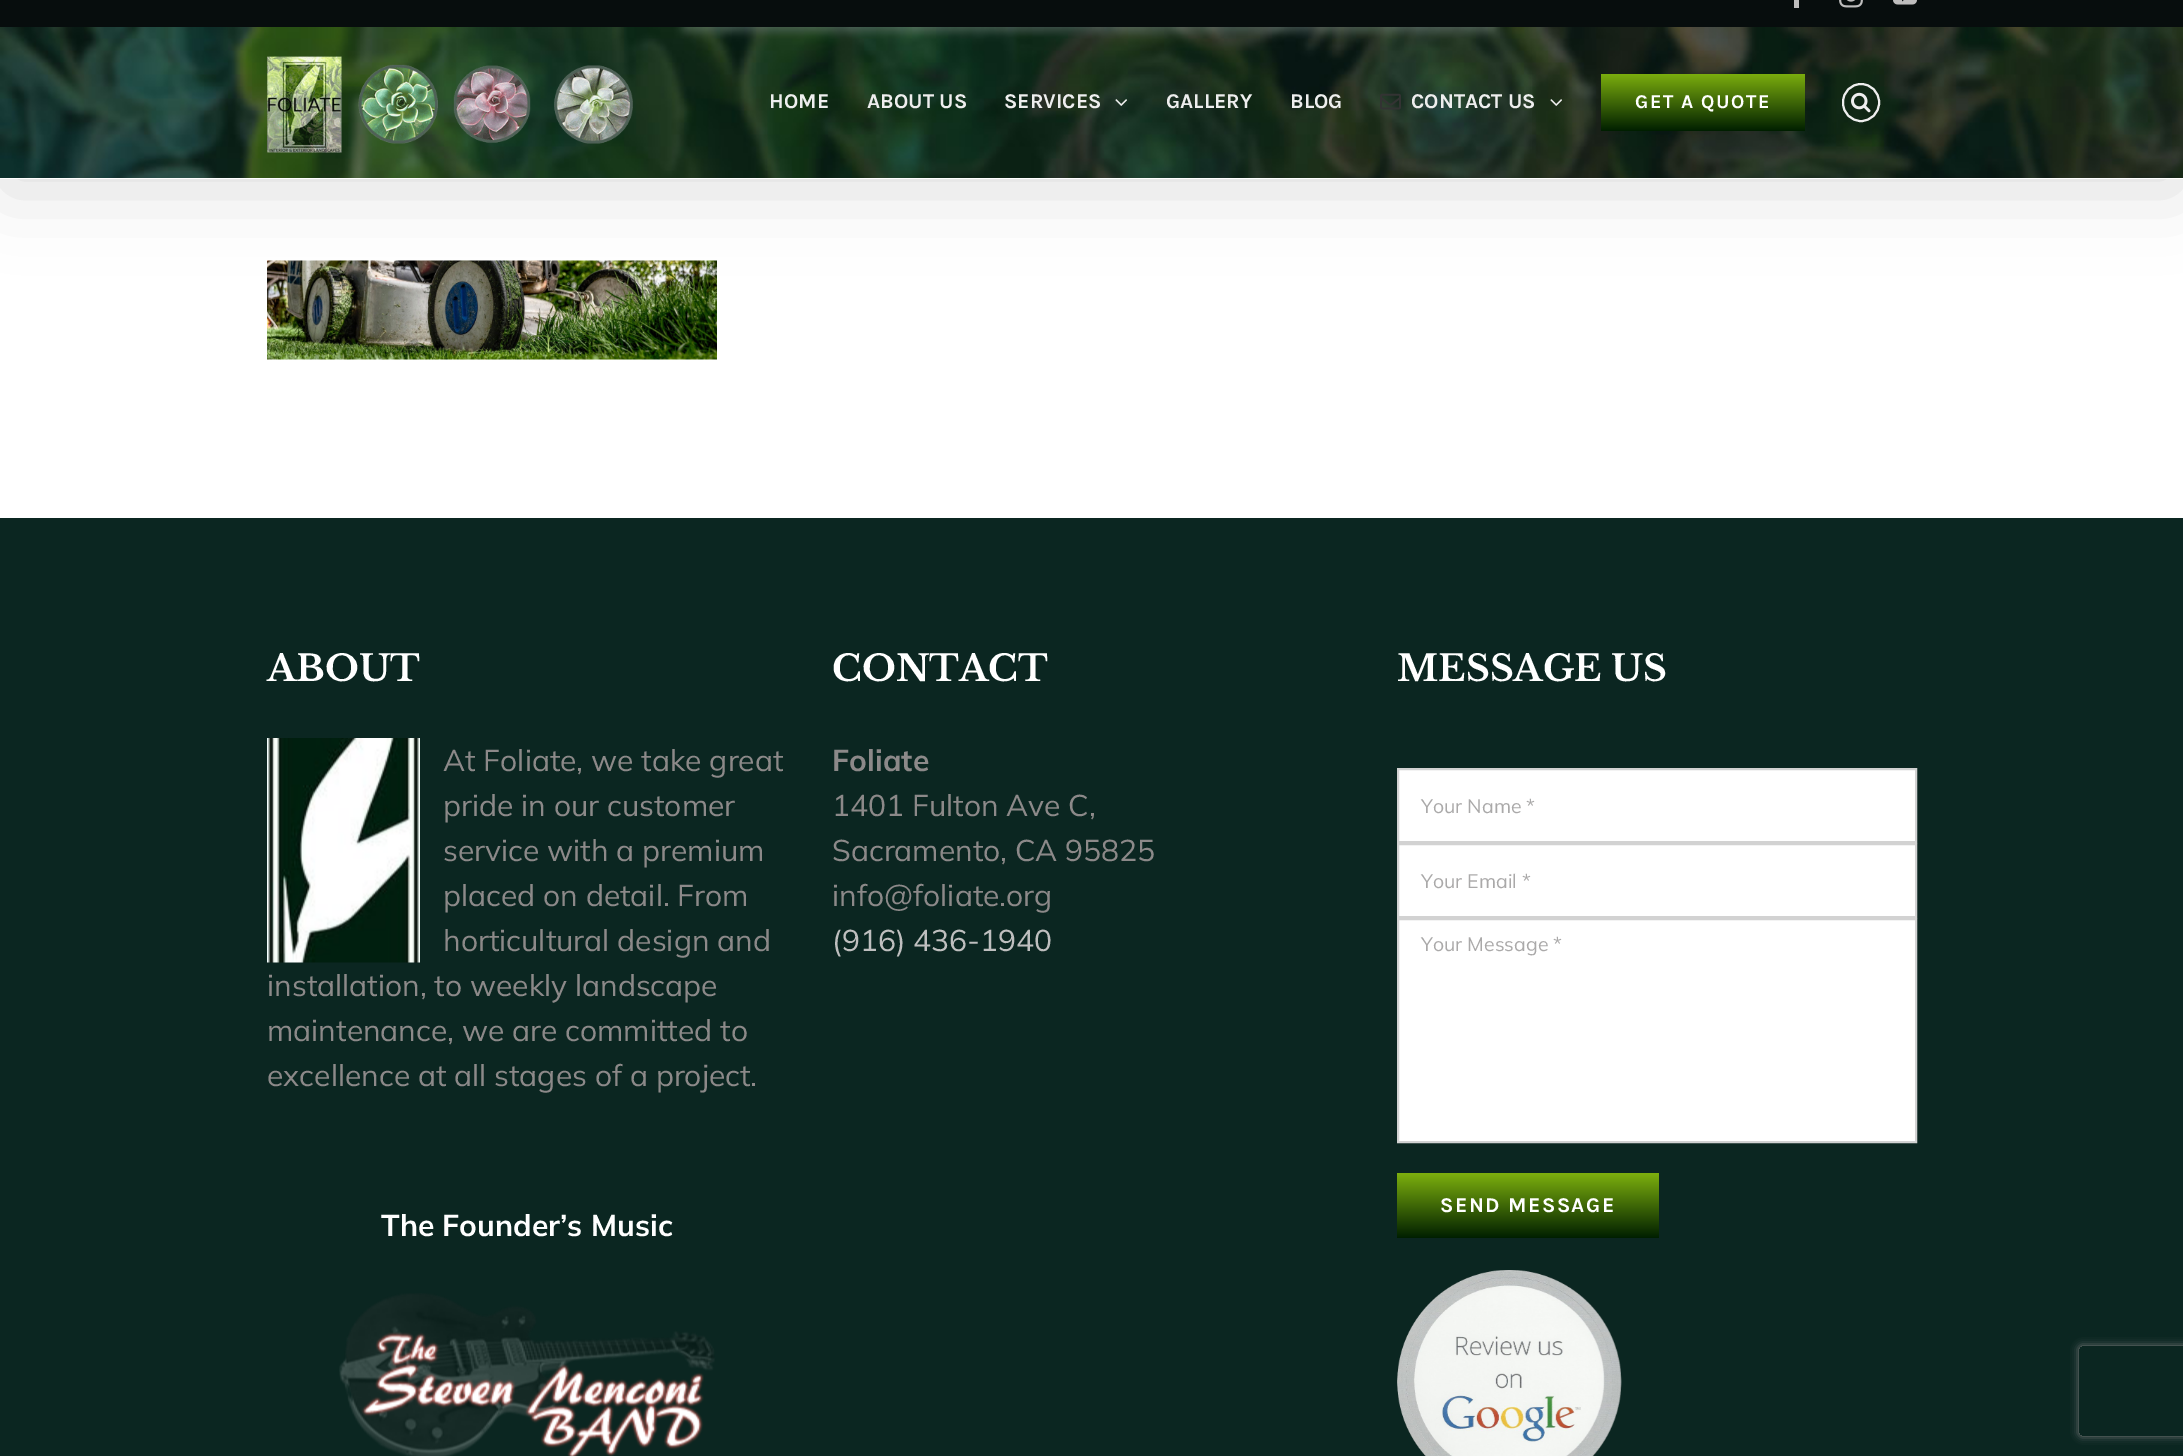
%!PS
<< /PageSize [2183 1456] /PageUsesTransparency true >> setpagedevice
/rgb { dup -16 bitshift 255 div exch dup -8 bitshift 255 and 255 div exch 255 and 255 div setrgbcolor } def
/font { [ exch dup neg 0 0 3 -1 roll 0 0 ] selectfont } def
/text { moveto show } def
/alpha { dup .setfillconstantalpha .setstrokeconstantalpha } def
/roundrect { 5 dict begin { /r /h /w /y /x } { exch def } forall
  x r add y moveto x w add y 2 copy h add r arct x w add y h add x 1 index r arct
  x y h add x y r arct x y 2 copy exch w add exch r arct closepath end } def
/shadow { 12 dict begin { /a /b /q /h /w /y /x } { exch def } forall gsave /was 0 def
  9 -2 -9 { dup b mul 4 div /e exch def 1 sub .425 mul 2.718 exch exp 1 add a .99 .min exch div /now exch def
    1 1 now sub 1 was sub div sub alpha /was now def
    w h .min e 2 mul add 0 gt { x e sub y e sub w e 2 mul add h e 2 mul add
      q e add b .6 mul add w h .min 2 div e add .min 0 .max roundrect fill } if } for grestore end } def
/picture { 5 dict begin { /h /w /y /x /name } { exch def } forall
  gsave x y translate w h scale
  w h 8 [w 0 0 h 0 0] name (r) file false 3 colorimage grestore end } def
0 .pushpdf14devicefilter
0 1456 translate 1 -1 scale
4 setmiterlimit
/s1 { /Karla-Bold 21 font 16#EEEEEE rgb } def
/s2 { /LibreBaskerville-Bold 36 font 16#FFFFFF rgb } def
/s3 { /Mulish-Regular 30 font 16#8C8989 rgb } def
/s4 { /Mulish-Bold 30 font 16#FFFFFF rgb } def
/s5 { /Mulish-Bold 30 font 16#8C8989 rgb } def
/s6 { /Mulish-Regular 30 font 16#BFBFBF rgb } def
/s7 { /Mulish-Regular 19.5 font 16#AAA9A9 rgb } def
16#FFFFFF rgb
0 0 2183 1456 rectfill
(pic9.raw) 267 260 450 100 picture
16#000000 rgb
3 -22 2178 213 0 37.5 0.14 shadow
16#070D0D rgb
0 0 2183 27 rectfill
16#BEBDBD rgb
1794 0 5 8 rectfill
(pic1.raw) 1839 0 24 8 picture
(pic2.raw) 1893 0 24 5 picture
16#FFFFFF rgb
0 178 2183 1 rectfill
(pic3.raw) 0 27 2183 151 picture
(pic4.raw) 267 56 366 97 picture
s1
(HOME) 769 108 text
(ABOUT US) 867 108 text
(SERVICES) 1004 108 text
(pic5.raw) 1115 99 12 7 picture
(GALLERY) 1166 108 text
(BLOG) 1290 108 text
(pic6.raw) 1380 93 21 17 picture
(CONTACT US) 1411 108 text
(pic7.raw) 1550 99 12 7 picture
gsave 1601 74 moveto 1805 74 lineto 1805 131 lineto 1601 131 lineto closepath clip newpath
<< /ShadingType 2 /ColorSpace /DeviceRGB /Coords [1703 73 1703 131] /Extend [true true] /Function << /FunctionType 2 /Domain [0 1] /C0 [0.49 0.69 0.055] /C1 [0 0.122 0] /N 1 >> >> shfill grestore
/Karla-Bold 19.5 font
16#FFFFFF rgb
1635 108 moveto 1.5 0 (GET A QUOTE) ashow
16#EEEEEE rgb
2 setlinewidth
1843 84 36 37 18 roundrect stroke
(pic8.raw) 1851 92 20 21 picture
16#0B2621 rgb
0 518 2183 938 rectfill
s2
(ABOUT) 267 681 text
(pic10.raw) 267 738 153 225 picture
s3
(At Foliate, we take great) 443 771 text
(pride in our customer) 443 816 text
(service with a premium) 443 861 text
(placed on detail. From) 443 906 text
(horticultural design and) 443 951 text
(installation, to weekly landscape) 267 996 text
(maintenance, we are committed to) 267 1041 text
(excellence at all stages of a project.) 267 1086 text
s4
(The Founder’s Music) 381 1236 text
(pic11.raw) 339 1293 376 163 picture
s2
(CONTACT) 832 681 text
s5
(Foliate) 832 771 text
s3
(1401 Fulton Ave C,) 832 816 text
(Sacramento, CA 95825) 832 861 text
(info@foliate.org) 832 906 text
s6
(\(916\) 436-1940) 832 951 text
s2
(MESSAGE US) 1397 681 text
1398 769 moveto 1916 769 lineto 1916 842 lineto 1398 842 lineto closepath gsave fill grestore
16#D2D2D2 rgb
stroke
s7
(Your Name *) 1421 813 text
16#FFFFFF rgb
1398 844 moveto 1916 844 lineto 1916 917 lineto 1398 917 lineto closepath gsave fill grestore
16#D2D2D2 rgb
stroke
s7
(Your Email *) 1421 888 text
16#FFFFFF rgb
1398 919 moveto 1916 919 lineto 1916 1142 lineto 1398 1142 lineto closepath gsave fill grestore
16#D2D2D2 rgb
stroke
s7
(Your Message *) 1421 951 text
gsave 1397 1173 moveto 1659 1173 lineto 1659 1238 lineto 1397 1238 lineto closepath clip newpath
<< /ShadingType 2 /ColorSpace /DeviceRGB /Coords [1528 1173 1528 1238] /Extend [true true] /Function << /FunctionType 2 /Domain [0 1] /C0 [0.49 0.69 0.055] /C1 [0 0.122 0] /N 1 >> >> shfill grestore
/Karla-Bold 21 font
16#FFFFFF rgb
1440 1212 moveto 1.5 0 (SEND MESSAGE) ashow
(pic12.raw) 1397 1270 225 186 picture
gsave
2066 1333 moveto 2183 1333 lineto 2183 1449 lineto 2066 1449 lineto closepath 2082 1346 moveto 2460 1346 lineto 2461.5 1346 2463 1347.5 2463 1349 curveto 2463 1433 lineto 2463 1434.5 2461.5 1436 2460 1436 curveto 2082 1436 lineto 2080.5 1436 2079 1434.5 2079 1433 curveto 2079 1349 lineto 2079 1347.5 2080.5 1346 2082 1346 curveto closepath eoclip newpath
16#808080 rgb
2079 1346 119 90 3 4 1 shadow
grestore
.poppdf14devicefilter showpage
